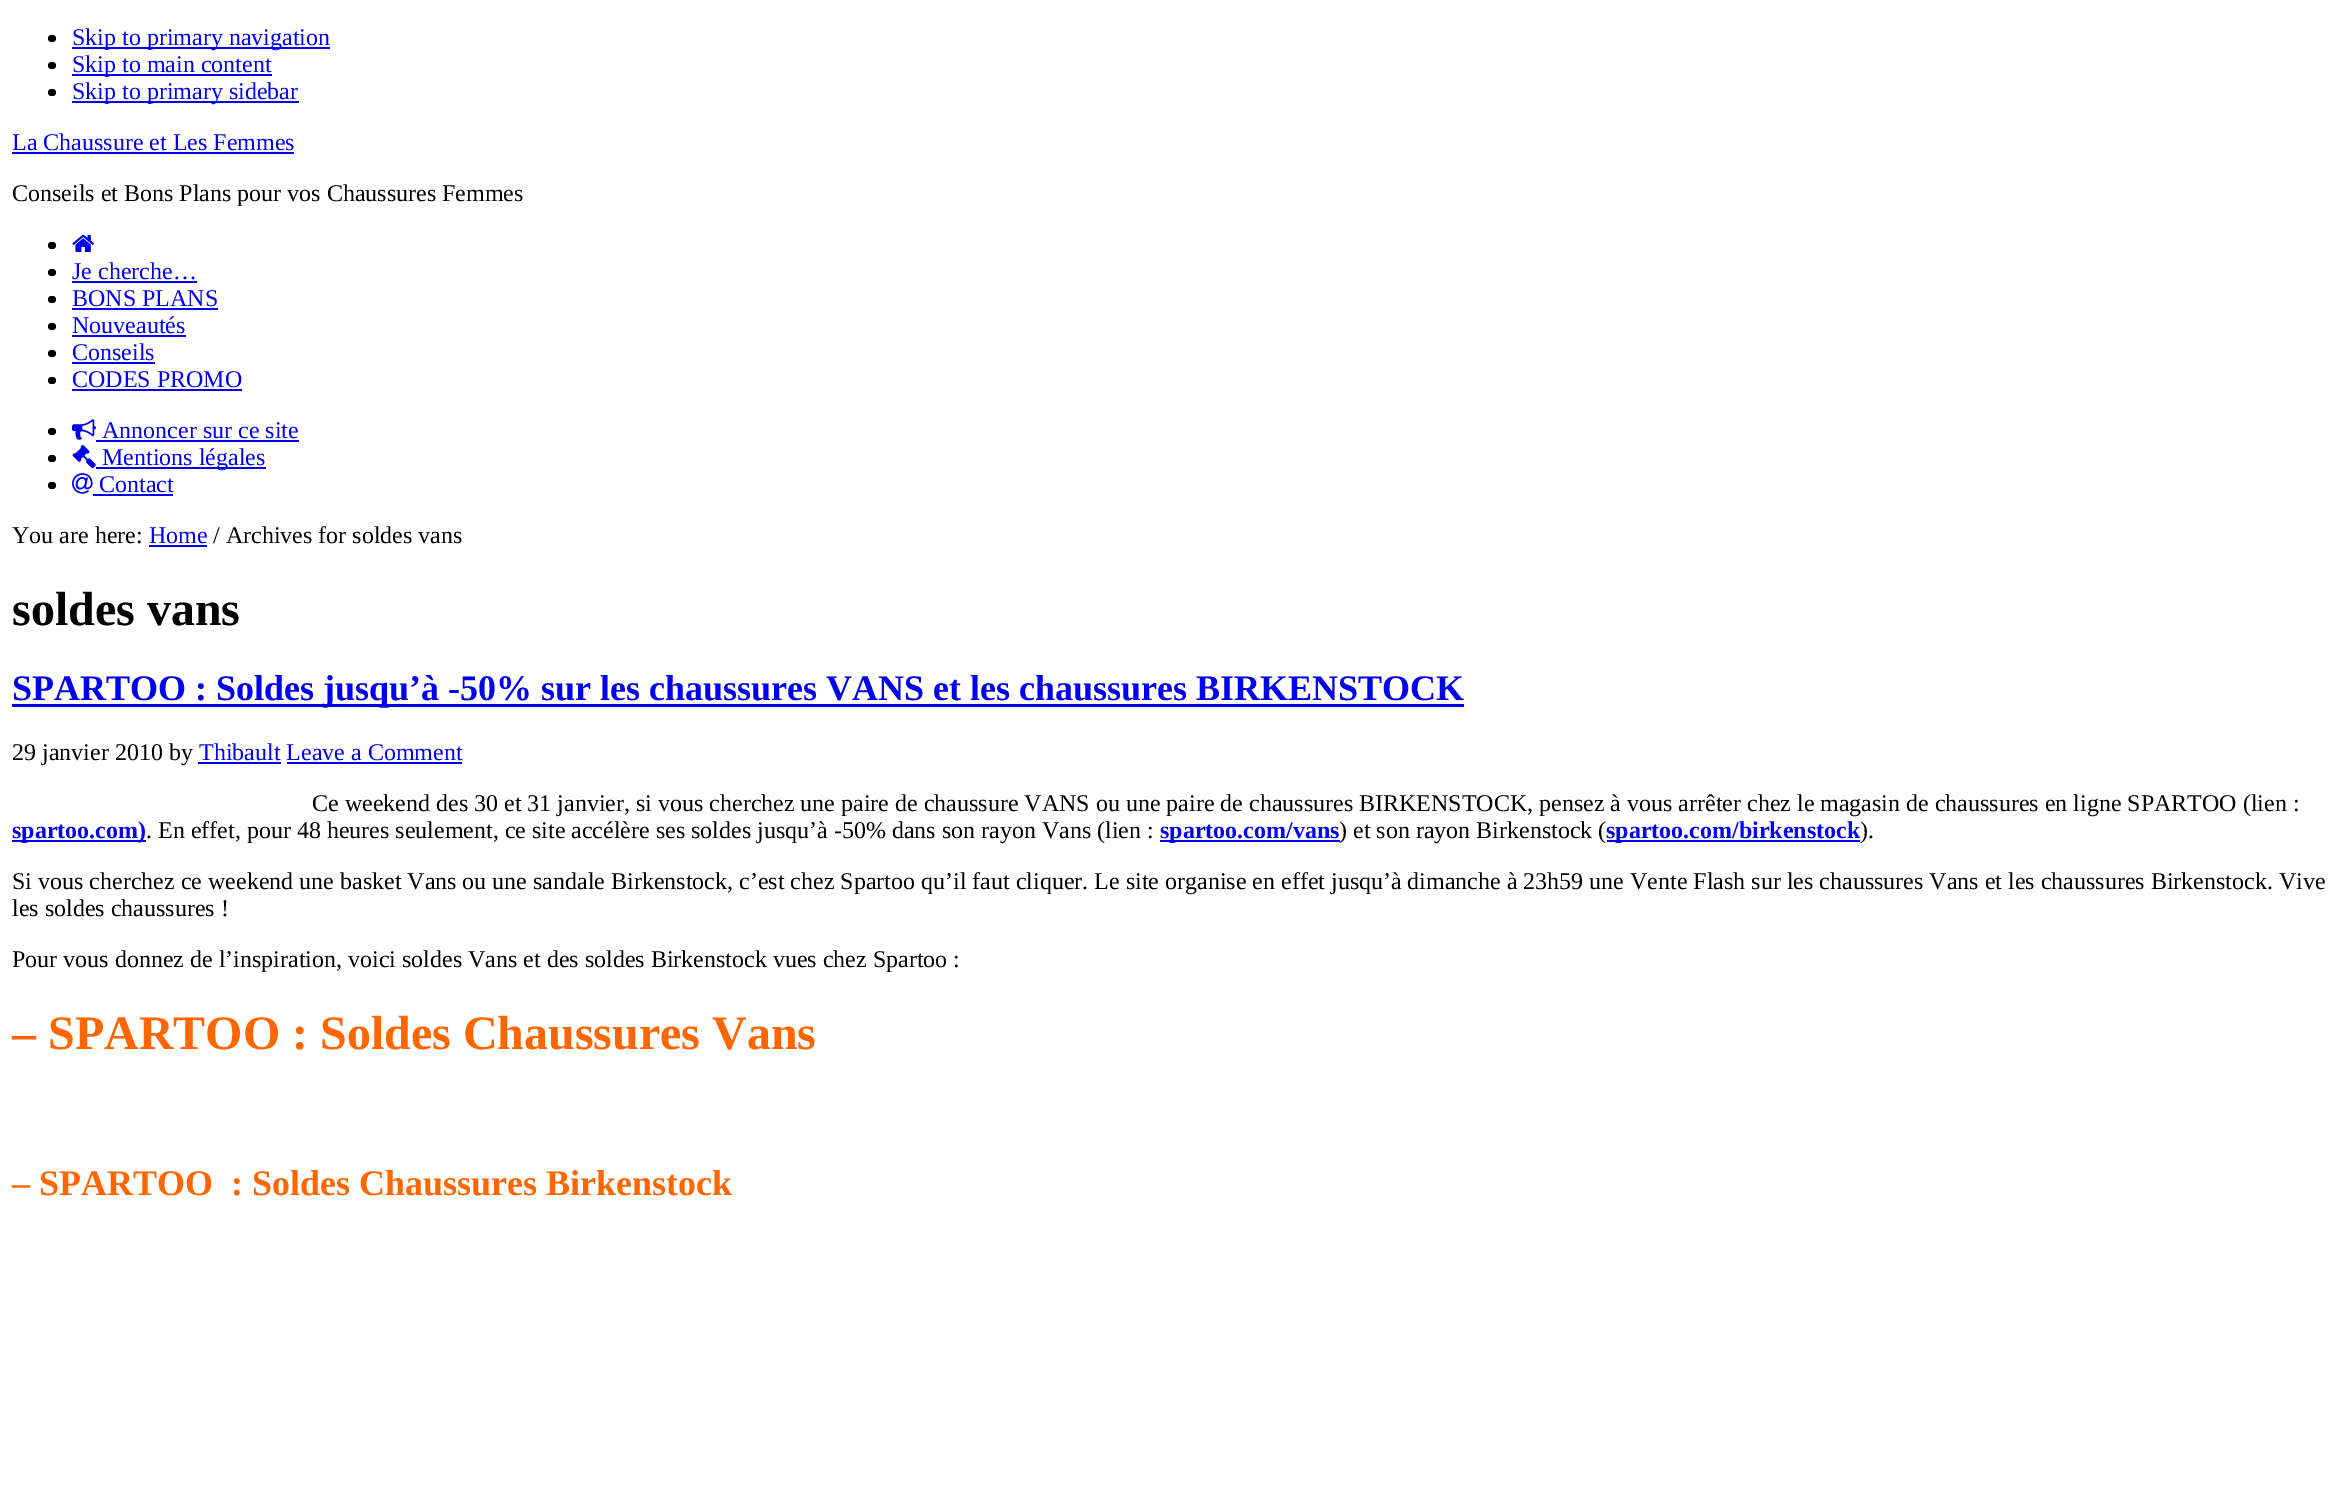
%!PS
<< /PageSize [2352 1500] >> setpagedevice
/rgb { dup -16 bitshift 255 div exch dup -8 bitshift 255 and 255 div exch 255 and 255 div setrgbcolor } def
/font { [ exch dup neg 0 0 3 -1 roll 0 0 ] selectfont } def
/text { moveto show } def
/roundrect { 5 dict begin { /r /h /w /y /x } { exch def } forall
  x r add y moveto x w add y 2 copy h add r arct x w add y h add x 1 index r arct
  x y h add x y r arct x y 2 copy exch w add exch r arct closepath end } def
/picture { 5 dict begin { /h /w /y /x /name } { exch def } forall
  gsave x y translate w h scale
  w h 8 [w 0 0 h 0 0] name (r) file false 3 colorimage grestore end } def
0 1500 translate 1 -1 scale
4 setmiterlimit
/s1 { /LiberationSerif-Regular 24 font 16#0000EE rgb } def
/s2 { /LiberationSerif-Regular 24 font 16#000000 rgb } def
/s3 { /LiberationSerif-Bold 48 font 16#000000 rgb } def
/s4 { /LiberationSerif-Bold 36 font 16#0000EE rgb } def
/s5 { /LiberationSerif-Bold 24 font 16#0000EE rgb } def
/s6 { /LiberationSerif-Bold 24 font 16#0000FF rgb } def
/s7 { /LiberationSerif-Bold 48 font 16#FF6600 rgb } def
/s8 { /LiberationSerif-Bold 36 font 16#FF6600 rgb } def
16#FFFFFF rgb
0 0 2352 1500 rectfill
16#000000 rgb
48 35 8 7 3.5 roundrect fill
16#0000EE rgb
72 47 258 2 rectfill
s1
(Skip to primary navigation) 72 45 text
16#000000 rgb
48 62 8 7 3.5 roundrect fill
16#0000EE rgb
72 74 200 2 rectfill
(Skip to main content) 72 72 text
16#000000 rgb
48 89 8 7 3.5 roundrect fill
16#0000EE rgb
72 101 227 2 rectfill
(Skip to primary sidebar) 72 99 text
(La Chaussure et Les Femmes) 12 150 text
12 152 282 2 rectfill
s2
(Conseils et Bons Plans pour vos Chaussures Femmes) 12 201 text
48 242 8 7 3.5 roundrect fill
(pic1.raw) 72 234 22 18 picture
48 269 8 7 3.5 roundrect fill
s1
(Je cherche…) 72 279 text
72 281 125 2 rectfill
16#000000 rgb
48 296 8 7 3.5 roundrect fill
s1
(BONS PLANS) 72 306 text
72 308 146 2 rectfill
16#000000 rgb
48 323 8 7 3.5 roundrect fill
s1
(Nouveautés) 72 333 text
72 335 114 2 rectfill
16#000000 rgb
48 350 8 7 3.5 roundrect fill
s1
(Conseils) 72 360 text
72 362 83 2 rectfill
16#000000 rgb
48 377 8 7 3.5 roundrect fill
s1
(CODES PROMO) 72 387 text
72 389 170 2 rectfill
16#000000 rgb
48 428 8 7 3.5 roundrect fill
(pic2.raw) 72 419 24 21 picture
s1
(Annoncer sur ce site) 102 438 text
96 440 203 2 rectfill
16#000000 rgb
48 455 8 7 3.5 roundrect fill
(pic3.raw) 72 445 24 24 picture
16#0000EE rgb
96 467 170 2 rectfill
(Mentions légales) 102 465 text
16#000000 rgb
48 482 8 7 3.5 roundrect fill
(pic4.raw) 72 473 21 21 picture
s1
(Contact) 99 492 text
93 494 80 2 rectfill
s2
(You are here:) 12 543 text
s1
(Home) 149 543 text
149 545 58 2 rectfill
s2
(/ Archives for soldes vans) 213 543 text
s3
(soldes vans) 12 625 text
16#0000EE rgb
12 704 1452 3 rectfill
s4
(SPARTOO : Soldes jusqu’à -50% sur les chaussures VANS et les chaussures BIRKENSTOCK) 12 700 text
s2
(29 janvier 2010 by) 12 760 text
s1
(Thibault Leave a Comment) 199 760 text
198 762 83 2 rectfill
287 762 175 2 rectfill
s2
(Ce weekend des 30 et 31 janvier, si vous cherchez une paire de chaussure VANS ou une paire de chaussures BIRKENSTOCK, pensez à vous arrêter chez le magasin de chaussures en ligne SPARTOO \(lien :) 312 811 text
16#0000FF rgb
12 840 134 2 rectfill
s5
(spartoo.com) 12 838 text
s6
(\)) 138 838 text
s2
(. En effet, pour 48 heures seulement, ce site accélère ses soldes jusqu’à -50% dans son rayon Vans \(lien :) 146 838 text
16#0000FF rgb
1160 840 180 2 rectfill
s5
(spartoo.com) 1160 838 text
s6
(/vans) 1286 838 text
s2
(\) et son rayon Birkenstock \() 1339 838 text
16#0000FF rgb
1607 840 253 2 rectfill
s5
(spartoo.com) 1606 838 text
s6
(/birkenstock) 1732 838 text
s2
(\).) 1860 838 text
(Si vous cherchez ce weekend une basket Vans ou une sandale Birkenstock, c’est chez Spartoo qu’il faut cliquer. Le site organise en effet jusqu’à dimanche à 23h59 une Vente Flash sur les chaussures Vans et les chaussures Birkenstock. Vive) 12 889 text
(les soldes chaussures !) 12 916 text
(Pour vous donnez de l’inspiration, voici soldes Vans et des soldes Birkenstock vues chez Spartoo :) 12 967 text
s7
(– SPARTOO : Soldes Chaussures Vans) 12 1049 text
s8
(– SPARTOO  : Soldes Chaussures Birkenstock) 12 1195 text
showpage
